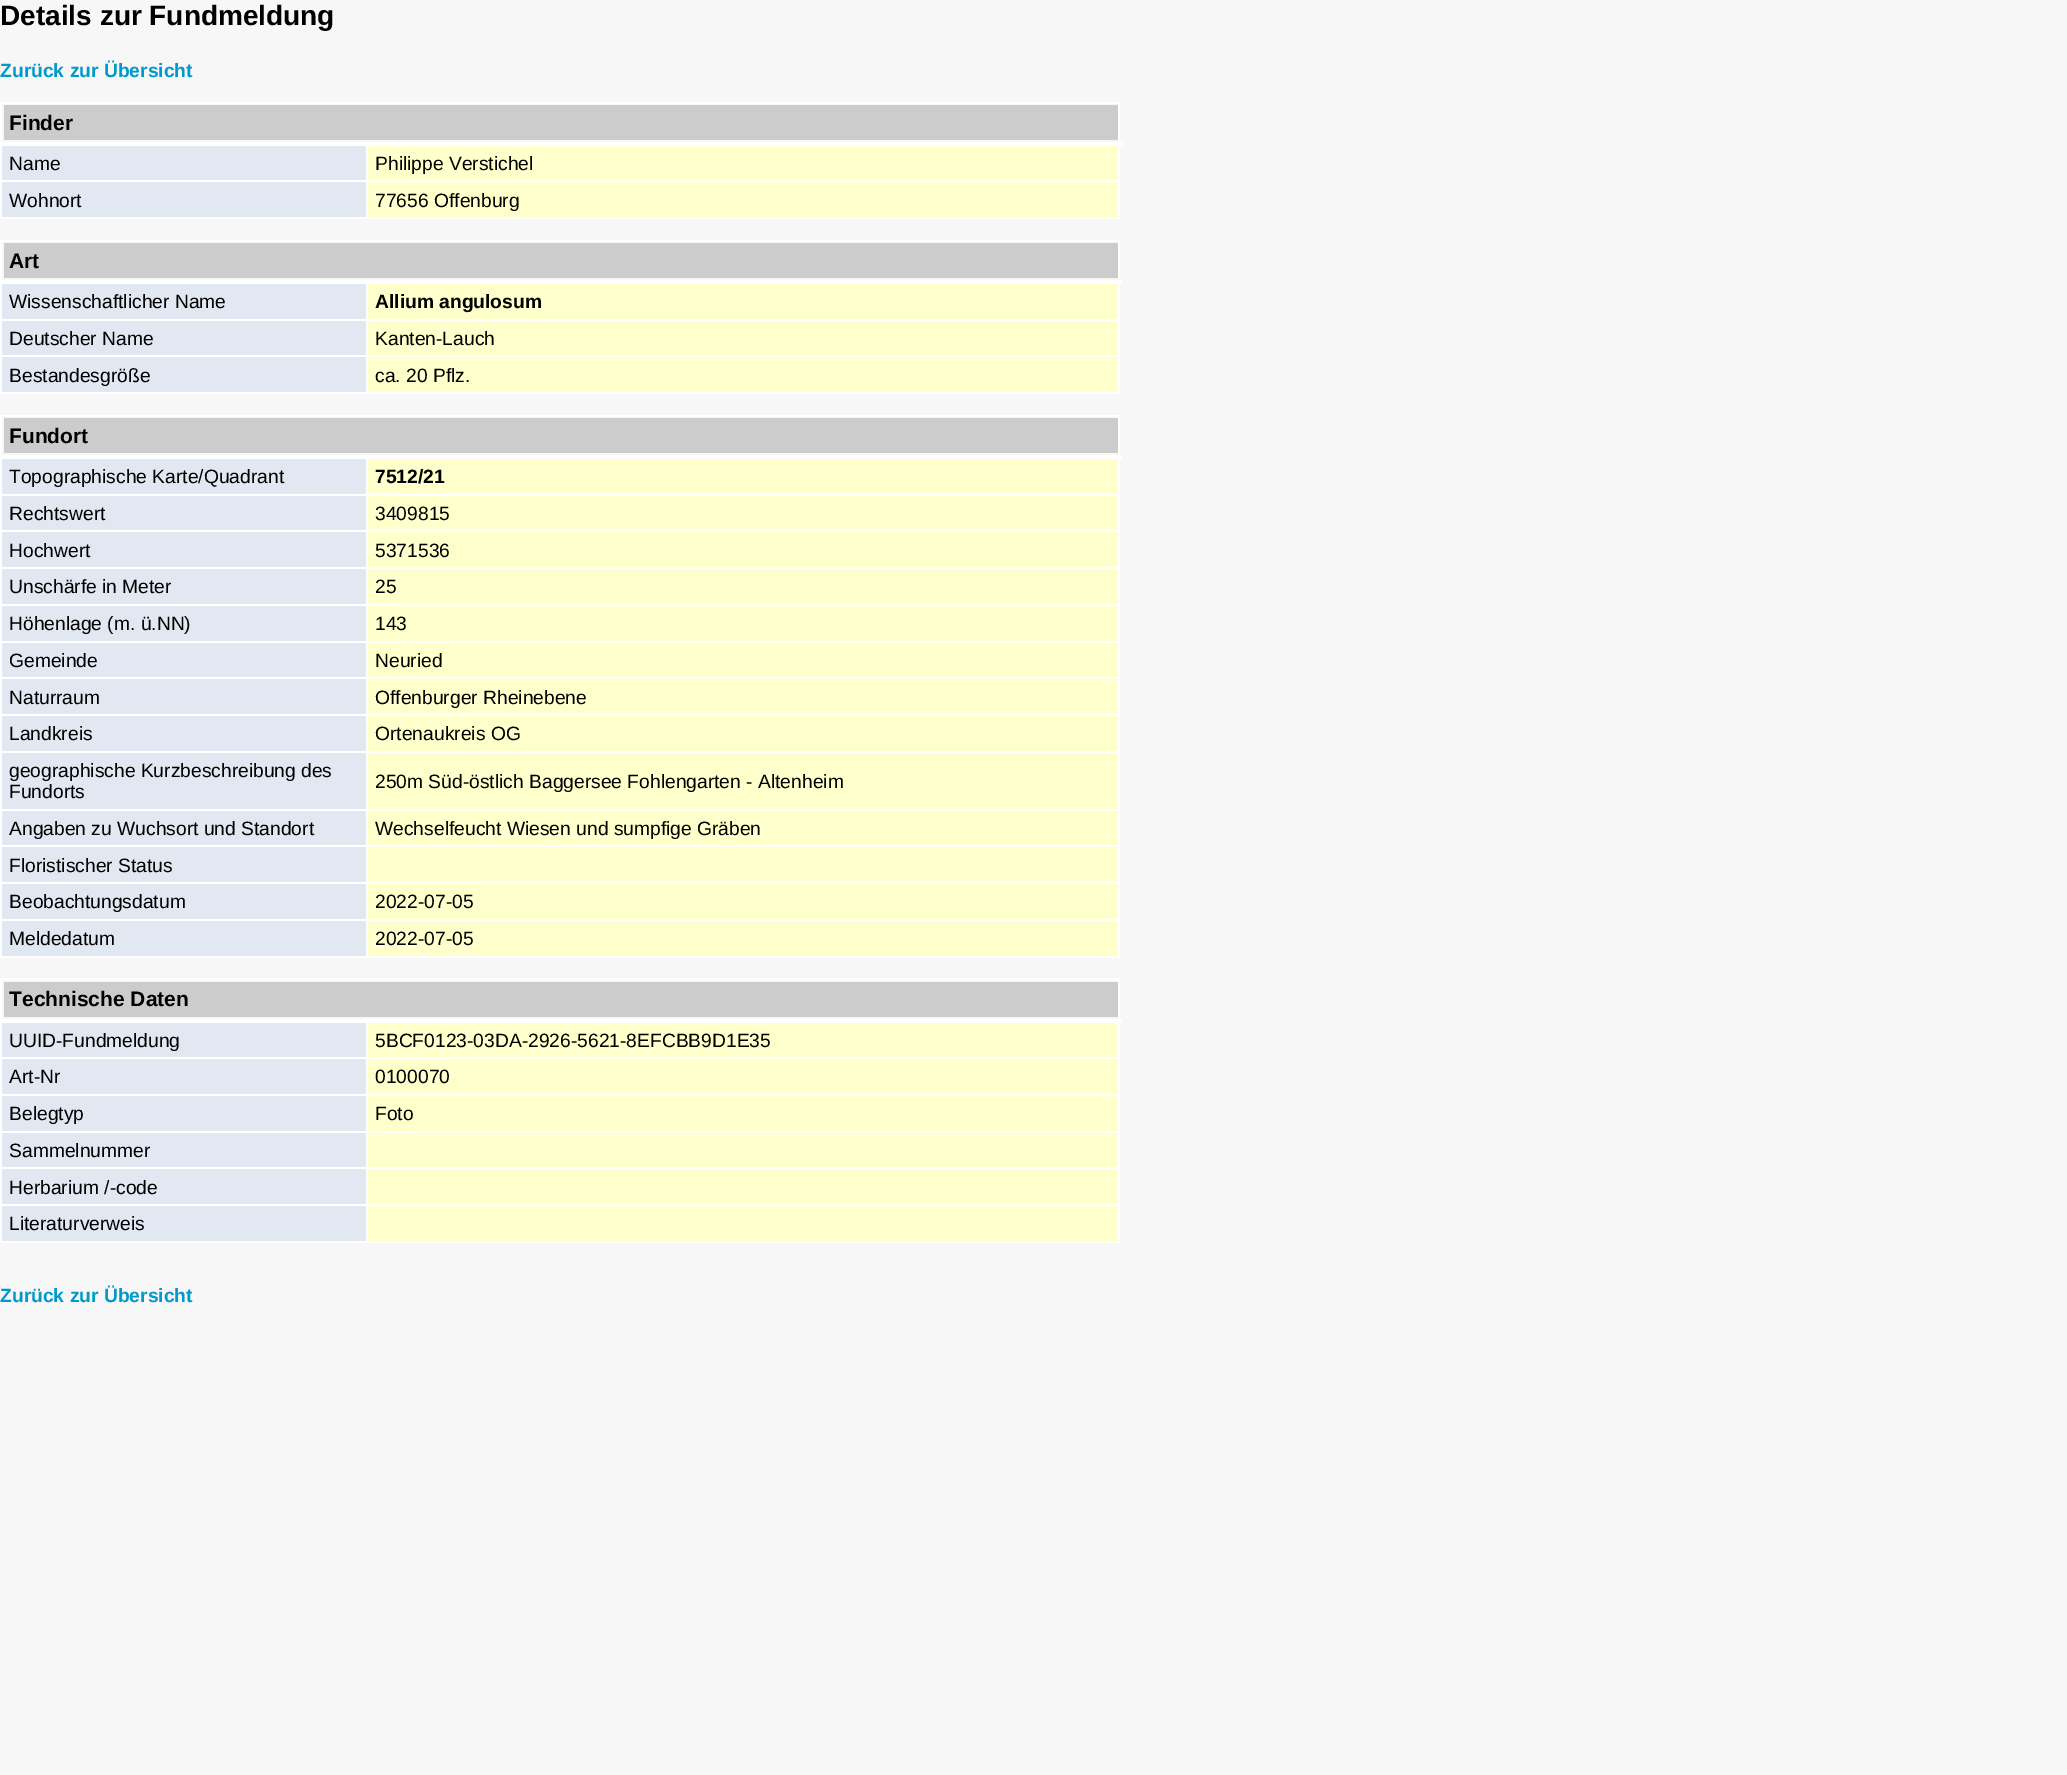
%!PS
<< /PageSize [2067 1775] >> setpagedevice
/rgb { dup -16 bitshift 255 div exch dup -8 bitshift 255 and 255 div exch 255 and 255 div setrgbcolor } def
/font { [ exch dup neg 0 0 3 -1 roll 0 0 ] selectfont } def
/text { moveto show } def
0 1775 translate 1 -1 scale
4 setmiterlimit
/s1 { /LiberationSans-Bold 28 font 16#000000 rgb } def
/s2 { /LiberationSans-Bold 19.25 font 16#0099CC rgb } def
/s3 { /LiberationSans-Bold 21 font 16#000000 rgb } def
/s4 { /LiberationSans-Regular 19.25 font 16#000000 rgb } def
/s5 { /LiberationSans-Bold 19.25 font 16#000000 rgb } def
16#F7F7F7 rgb
0 0 2067 1775 rectfill
s1
(Details zur Fundmeldung) 0 25 text
s2
(Zurück zur Übersicht) 0 77 text
16#CCCCCC rgb
4 105 1114 35 rectfill
16#FFFFFF rgb
0 102 1120 2 rectfill
366 180 754 2 rectfill
1118 144 2 75 rectfill
1118 102 2 43 rectfill
366 217 754 2 rectfill
366 180 2 39 rectfill
0 180 368 2 rectfill
0 217 368 2 rectfill
0 144 2 75 rectfill
0 102 2 43 rectfill
366 144 2 38 rectfill
0 142 1122 4 rectfill
s3
(Finder) 9 130 text
16#E1E8F1 rgb
2 146 364 34 rectfill
s4
(Name) 9 170 text
16#FFFFCC rgb
368 146 750 34 rectfill
s4
(Philippe Verstichel) 375 170 text
16#E1E8F1 rgb
2 182 364 35 rectfill
s4
(Wohnort) 9 207 text
16#FFFFCC rgb
368 182 750 35 rectfill
s4
(77656 Offenburg) 375 207 text
16#CCCCCC rgb
4 243 1114 35 rectfill
16#FFFFFF rgb
0 240 1120 2 rectfill
366 319 754 2 rectfill
366 355 754 2 rectfill
1118 355 2 39 rectfill
1118 282 2 75 rectfill
1118 240 2 44 rectfill
366 392 754 2 rectfill
366 355 2 39 rectfill
0 355 368 2 rectfill
366 319 2 38 rectfill
0 319 368 2 rectfill
0 392 368 2 rectfill
0 355 2 39 rectfill
0 282 2 75 rectfill
0 240 2 44 rectfill
366 282 2 38 rectfill
0 280 1122 4 rectfill
s3
(Art) 9 268 text
16#E1E8F1 rgb
2 284 364 35 rectfill
s4
(Wissenschaftlicher Name) 9 308 text
16#FFFFCC rgb
368 284 750 35 rectfill
s5
(Allium angulosum) 375 308 text
16#E1E8F1 rgb
2 321 364 34 rectfill
s4
(Deutscher Name) 9 345 text
16#FFFFCC rgb
368 321 750 34 rectfill
s4
(Kanten-Lauch) 375 345 text
16#E1E8F1 rgb
2 357 364 35 rectfill
s4
(Bestandesgröße) 9 382 text
16#FFFFCC rgb
368 357 750 35 rectfill
s4
(ca. 20 Pflz.) 375 382 text
16#CCCCCC rgb
4 418 1114 35 rectfill
16#FFFFFF rgb
0 415 1120 2 rectfill
366 494 754 2 rectfill
366 530 754 2 rectfill
366 567 754 2 rectfill
366 604 754 2 rectfill
366 641 754 2 rectfill
366 677 754 2 rectfill
366 714 754 2 rectfill
366 751 754 2 rectfill
366 809 754 2 rectfill
366 845 754 2 rectfill
366 882 754 2 rectfill
366 919 754 2 rectfill
1118 919 2 38 rectfill
1118 882 2 39 rectfill
1118 845 2 39 rectfill
1118 809 2 38 rectfill
1118 751 2 59 rectfill
1118 714 2 39 rectfill
1118 677 2 39 rectfill
1118 641 2 38 rectfill
1118 604 2 38 rectfill
1118 567 2 39 rectfill
1118 530 2 39 rectfill
1118 457 2 75 rectfill
1118 415 2 44 rectfill
366 956 754 2 rectfill
366 919 2 38 rectfill
0 919 368 2 rectfill
366 882 2 39 rectfill
0 882 368 2 rectfill
366 845 2 39 rectfill
0 845 368 2 rectfill
366 809 2 38 rectfill
0 809 368 2 rectfill
366 751 2 59 rectfill
0 751 368 2 rectfill
366 714 2 39 rectfill
0 714 368 2 rectfill
366 677 2 39 rectfill
0 677 368 2 rectfill
366 641 2 38 rectfill
0 641 368 2 rectfill
366 604 2 38 rectfill
0 604 368 2 rectfill
366 567 2 39 rectfill
0 567 368 2 rectfill
366 530 2 39 rectfill
0 530 368 2 rectfill
366 494 2 38 rectfill
0 494 368 2 rectfill
0 956 368 2 rectfill
0 919 2 38 rectfill
0 882 2 39 rectfill
0 845 2 39 rectfill
0 809 2 38 rectfill
0 751 2 59 rectfill
0 714 2 39 rectfill
0 677 2 39 rectfill
0 641 2 38 rectfill
0 604 2 38 rectfill
0 567 2 39 rectfill
0 530 2 39 rectfill
0 457 2 75 rectfill
0 415 2 44 rectfill
366 457 2 38 rectfill
0 455 1122 4 rectfill
s3
(Fundort) 9 443 text
16#E1E8F1 rgb
2 459 364 35 rectfill
s4
(Topographische Karte/Quadrant) 9 483 text
16#FFFFCC rgb
368 459 750 35 rectfill
s5
(7512/21) 375 483 text
16#E1E8F1 rgb
2 496 364 34 rectfill
s4
(Rechtswert) 9 520 text
16#FFFFCC rgb
368 496 750 34 rectfill
s4
(3409815) 375 520 text
16#E1E8F1 rgb
2 532 364 35 rectfill
s4
(Hochwert) 9 557 text
16#FFFFCC rgb
368 532 750 35 rectfill
s4
(5371536) 375 557 text
16#E1E8F1 rgb
2 569 364 35 rectfill
s4
(Unschärfe in Meter) 9 593 text
16#FFFFCC rgb
368 569 750 35 rectfill
s4
(25) 375 593 text
16#E1E8F1 rgb
2 606 364 35 rectfill
s4
(Höhenlage \(m. ü.NN\)) 9 630 text
16#FFFFCC rgb
368 606 750 35 rectfill
s4
(143) 375 630 text
16#E1E8F1 rgb
2 643 364 34 rectfill
s4
(Gemeinde) 9 667 text
16#FFFFCC rgb
368 643 750 34 rectfill
s4
(Neuried) 375 667 text
16#E1E8F1 rgb
2 679 364 35 rectfill
s4
(Naturraum) 9 704 text
16#FFFFCC rgb
368 679 750 35 rectfill
s4
(Offenburger Rheinebene) 375 704 text
16#E1E8F1 rgb
2 716 364 35 rectfill
s4
(Landkreis) 9 740 text
16#FFFFCC rgb
368 716 750 35 rectfill
s4
(Ortenaukreis OG) 375 740 text
16#E1E8F1 rgb
2 753 364 56 rectfill
s4
(geographische Kurzbeschreibung des) 9 777 text
(Fundorts) 9 798 text
16#FFFFCC rgb
368 753 750 56 rectfill
s4
(250m Süd-östlich Baggersee Fohlengarten - Altenheim) 375 788 text
16#E1E8F1 rgb
2 811 364 34 rectfill
s4
(Angaben zu Wuchsort und Standort) 9 835 text
16#FFFFCC rgb
368 811 750 34 rectfill
s4
(Wechselfeucht Wiesen und sumpfige Gräben) 375 835 text
16#E1E8F1 rgb
2 847 364 35 rectfill
s4
(Floristischer Status) 9 872 text
16#FFFFCC rgb
368 847 750 35 rectfill
16#E1E8F1 rgb
2 884 364 35 rectfill
s4
(Beobachtungsdatum) 9 908 text
16#FFFFCC rgb
368 884 750 35 rectfill
s4
(2022-07-05) 375 908 text
16#E1E8F1 rgb
2 921 364 35 rectfill
s4
(Meldedatum) 9 945 text
16#FFFFCC rgb
368 921 750 35 rectfill
s4
(2022-07-05) 375 945 text
16#CCCCCC rgb
4 982 1114 35 rectfill
16#FFFFFF rgb
0 978 1120 2 rectfill
366 1057 754 2 rectfill
366 1094 754 2 rectfill
366 1131 754 2 rectfill
366 1167 754 2 rectfill
366 1204 754 2 rectfill
1118 1204 2 39 rectfill
1118 1167 2 39 rectfill
1118 1131 2 38 rectfill
1118 1094 2 38 rectfill
1118 1020 2 76 rectfill
1118 978 2 44 rectfill
366 1241 754 2 rectfill
366 1204 2 39 rectfill
0 1204 368 2 rectfill
366 1167 2 39 rectfill
0 1167 368 2 rectfill
366 1131 2 38 rectfill
0 1131 368 2 rectfill
366 1094 2 38 rectfill
0 1094 368 2 rectfill
366 1057 2 39 rectfill
0 1057 368 2 rectfill
0 1241 368 2 rectfill
0 1204 2 39 rectfill
0 1167 2 39 rectfill
0 1131 2 38 rectfill
0 1094 2 38 rectfill
0 1020 2 76 rectfill
0 978 2 44 rectfill
366 1020 2 39 rectfill
0 1019 1122 4 rectfill
s3
(Technische Daten) 9 1006 text
16#E1E8F1 rgb
2 1023 364 34 rectfill
s4
(UUID-Fundmeldung) 9 1047 text
16#FFFFCC rgb
368 1023 750 34 rectfill
s4
(5BCF0123-03DA-2926-5621-8EFCBB9D1E35) 375 1047 text
16#E1E8F1 rgb
2 1059 364 35 rectfill
s4
(Art-Nr) 9 1083 text
16#FFFFCC rgb
368 1059 750 35 rectfill
s4
(0100070) 375 1083 text
16#E1E8F1 rgb
2 1096 364 35 rectfill
s4
(Belegtyp) 9 1120 text
16#FFFFCC rgb
368 1096 750 35 rectfill
s4
(Foto) 375 1120 text
16#E1E8F1 rgb
2 1133 364 34 rectfill
s4
(Sammelnummer) 9 1157 text
16#FFFFCC rgb
368 1133 750 34 rectfill
16#E1E8F1 rgb
2 1169 364 35 rectfill
s4
(Herbarium /-code) 9 1194 text
16#FFFFCC rgb
368 1169 750 35 rectfill
16#E1E8F1 rgb
2 1206 364 35 rectfill
s4
(Literaturverweis) 9 1230 text
16#FFFFCC rgb
368 1206 750 35 rectfill
s2
(Zurück zur Übersicht) 0 1302 text
showpage
